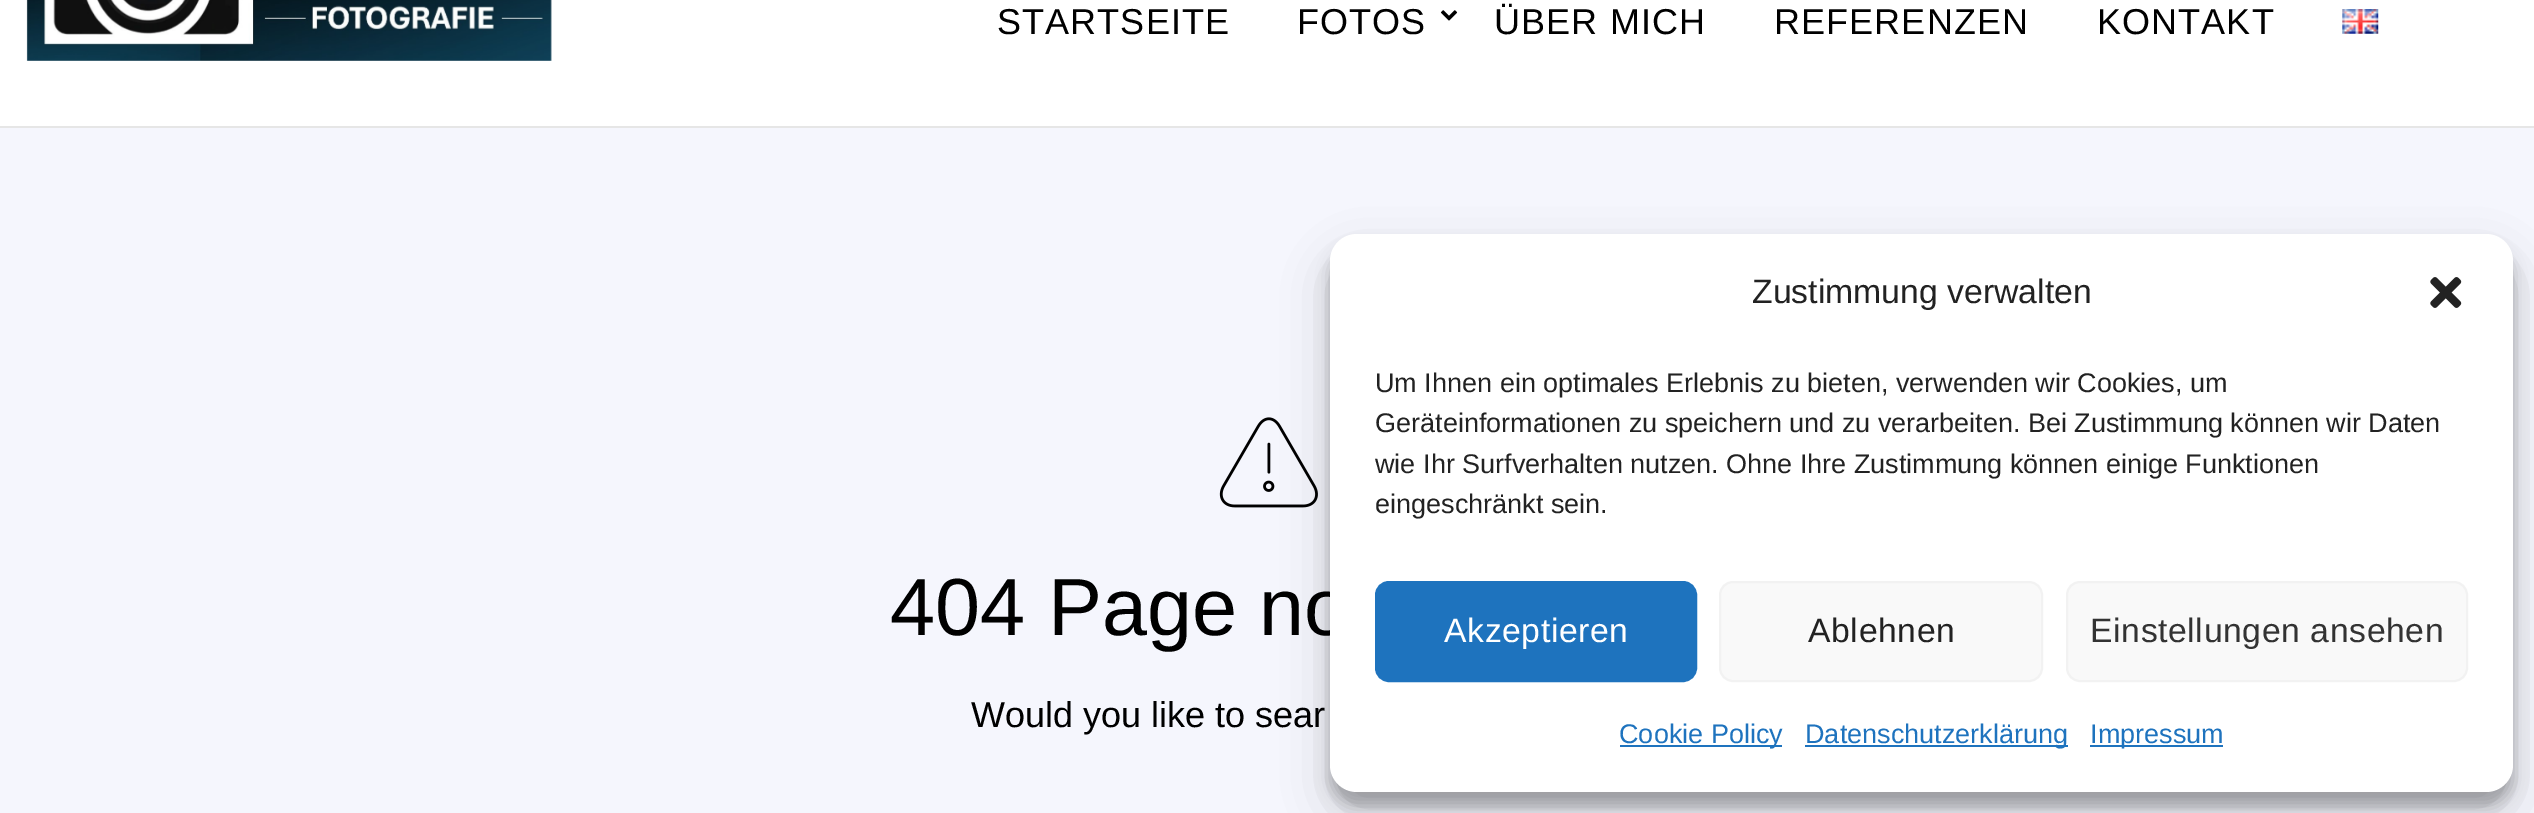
%!PS
<< /PageSize [2534 813] /PageUsesTransparency true >> setpagedevice
/rgb { dup -16 bitshift 255 div exch dup -8 bitshift 255 and 255 div exch 255 and 255 div setrgbcolor } def
/font { [ exch dup neg 0 0 3 -1 roll 0 0 ] selectfont } def
/text { moveto show } def
/alpha { dup .setfillconstantalpha .setstrokeconstantalpha } def
/roundrect { 5 dict begin { /r /h /w /y /x } { exch def } forall
  x r add y moveto x w add y 2 copy h add r arct x w add y h add x 1 index r arct
  x y h add x y r arct x y 2 copy exch w add exch r arct closepath end } def
/shadow { 12 dict begin { /a /b /q /h /w /y /x } { exch def } forall gsave /was 0 def
  9 -2 -9 { dup b mul 4 div /e exch def 1 sub .425 mul 2.718 exch exp 1 add a .99 .min exch div /now exch def
    1 1 now sub 1 was sub div sub alpha /was now def
    w h .min e 2 mul add 0 gt { x e sub y e sub w e 2 mul add h e 2 mul add
      q e add b .6 mul add w h .min 2 div e add .min 0 .max roundrect fill } if } for grestore end } def
/picture { 5 dict begin { /h /w /y /x /name } { exch def } forall
  gsave x y translate w h scale
  w h 8 [w 0 0 h 0 0] name (r) file false 3 colorimage grestore end } def
0 .pushpdf14devicefilter
0 813 translate 1 -1 scale
4 setmiterlimit
/s1 { /LiberationSans-Regular 81 font 16#000000 rgb } def
/s2 { /LiberationSans-Regular 36 font 16#000000 rgb } def
/s3 { /LiberationSans-Regular 33.75 font 16#222222 rgb } def
/s4 { /LiberationSans-Regular 27 font 16#222222 rgb } def
/s5 { /LiberationSans-Regular 27 font 16#1E73BE rgb } def
16#F5F6FD rgb
0 0 2534 813 rectfill
16#FFFFFF rgb
0 0 2534 126 rectfill
16#E6E6E6 rgb
0 126 2534 2 rectfill
(pic1.raw) 26 0 526 61 picture
/LiberationSans-Regular 36 font
16#000000 rgb
997 34 moveto 1.1 0 (STARTSEITE) ashow
1297 34 moveto 1.1 0 (FOTOS) ashow
(pic2.raw) 1440 10 18 11 picture
1494 34 moveto 1.1 0 (ÜBER MICH) ashow
1774 34 moveto 1.1 0 (REFERENZEN) ashow
2097 34 moveto 1.1 0 (KONTAKT) ashow
(pic3.raw) 2342 9 37 25 picture
(pic4.raw) 1219 417 99 91 picture
s1
(404 Page no) 890 635 text
s2
(Would you like to sear) 971 727 text
1330 248 1183 558 27 7 0.23 shadow
1330 257 1183 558 27 22.5 0.19 shadow
16#FFFFFF rgb
1330 234 1183 558 27 roundrect fill
s3
(Zustimmung verwalten) 1752 303 text
(pic5.raw) 2430 277 32 31 picture
s4
(Um Ihnen ein optimales Erlebnis zu bieten, verwenden wir Cookies, um) 1375 392 text
(Geräteinformationen zu speichern und zu verarbeiten. Bei Zustimmung können wir Daten) 1375 432 text
(wie Ihr Surfverhalten nutzen. Ohne Ihre Zustimmung können einige Funktionen) 1375 473 text
(eingeschränkt sein.) 1375 513 text
16#1E73BE rgb
1376 582 320 99 13 roundrect gsave fill grestore
2 setlinewidth
stroke
/LiberationSans-Regular 33.75 font
16#FFFFFF rgb
1444 642 moveto 0.6 0 (Akzeptieren) ashow
16#F9F9F9 rgb
1720 582 322 99 13 roundrect gsave fill grestore
16#F2F2F2 rgb
stroke
16#222222 rgb
1808 642 moveto 0.6 0 (Ablehnen) ashow
16#F9F9F9 rgb
2067 582 400 99 13 roundrect gsave fill grestore
16#F2F2F2 rgb
stroke
16#333333 rgb
2090 642 moveto 0.6 0 (Einstellungen ansehen) ashow
16#1E73BE rgb
1620 745 162 2 rectfill
s5
(Cookie Policy) 1619 743 text
1805 745 263 2 rectfill
(Datenschutzerklärung) 1805 743 text
2090 745 133 2 rectfill
(Impressum) 2090 743 text
.poppdf14devicefilter showpage
